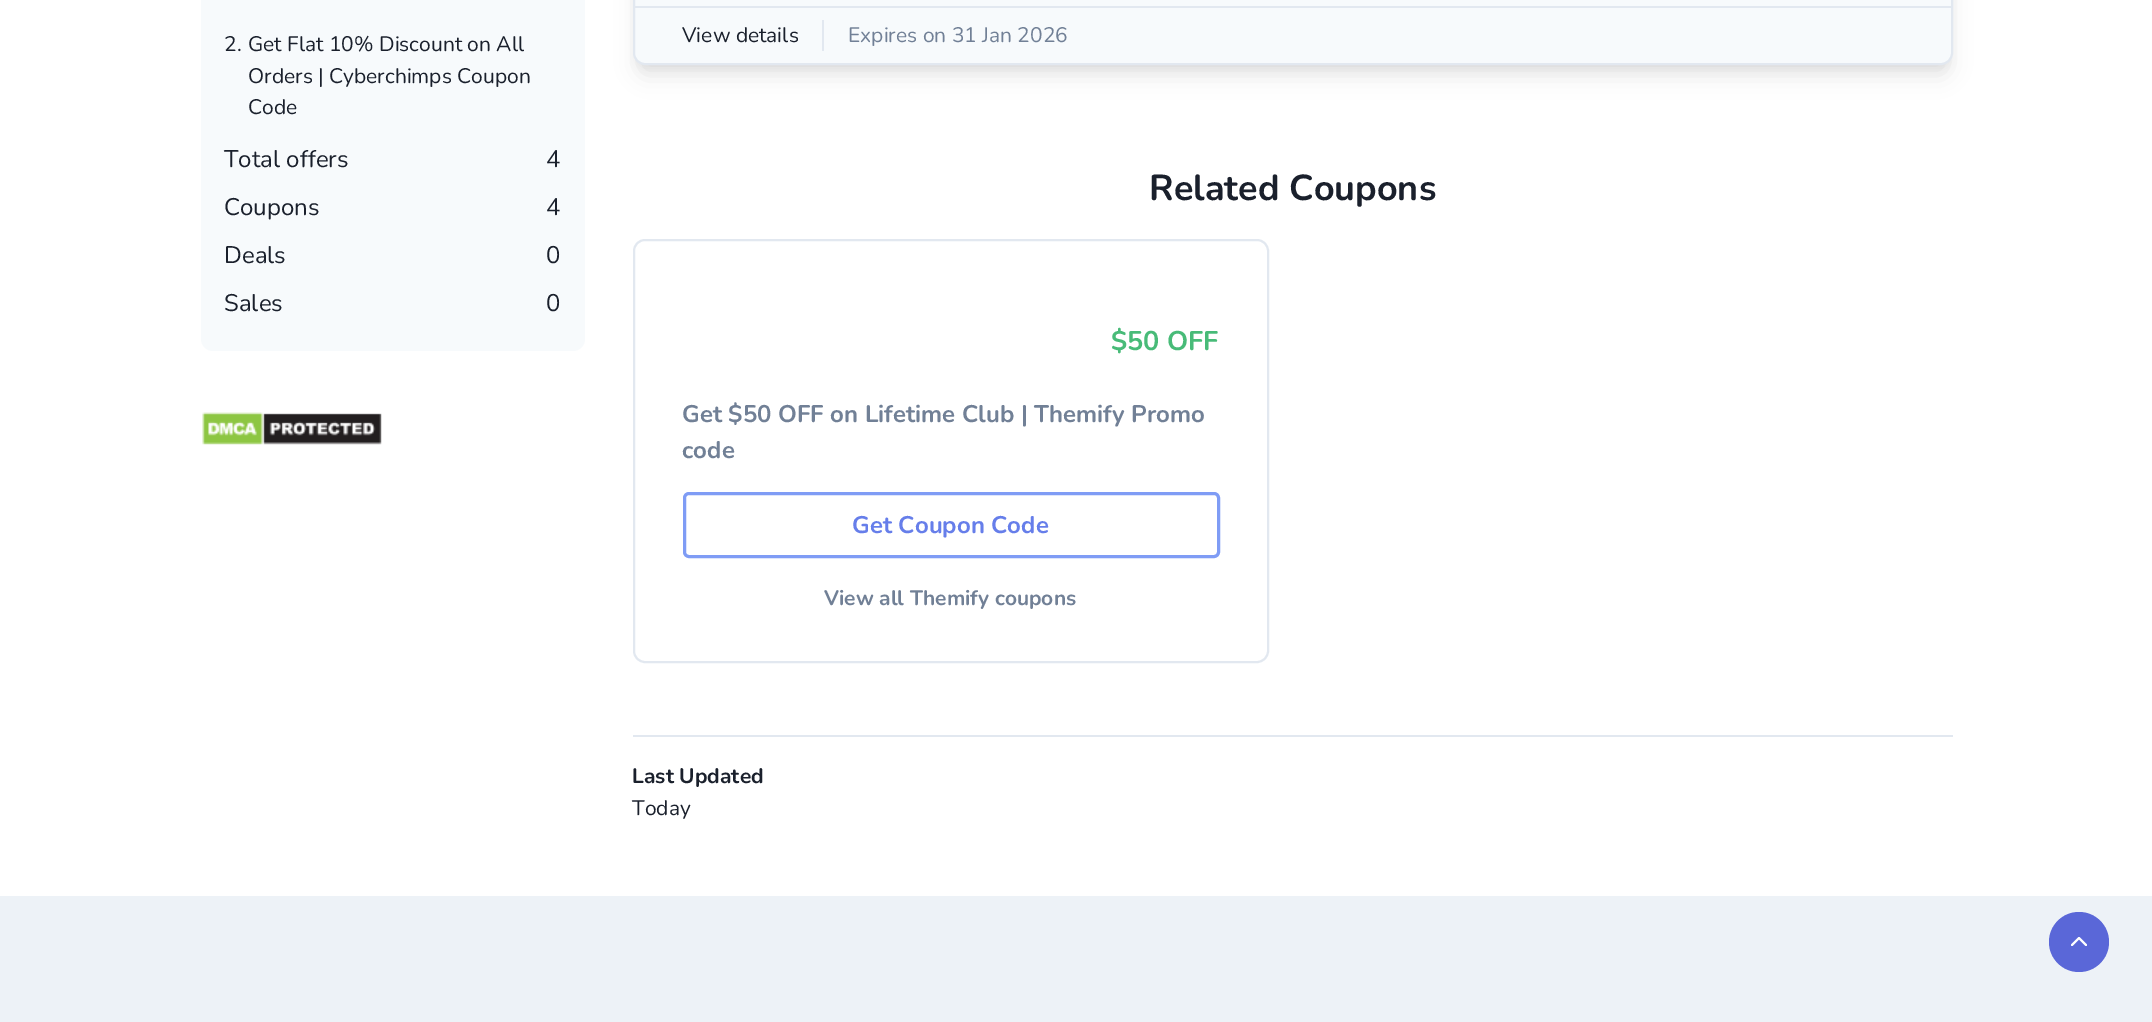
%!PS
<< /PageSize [2152 1022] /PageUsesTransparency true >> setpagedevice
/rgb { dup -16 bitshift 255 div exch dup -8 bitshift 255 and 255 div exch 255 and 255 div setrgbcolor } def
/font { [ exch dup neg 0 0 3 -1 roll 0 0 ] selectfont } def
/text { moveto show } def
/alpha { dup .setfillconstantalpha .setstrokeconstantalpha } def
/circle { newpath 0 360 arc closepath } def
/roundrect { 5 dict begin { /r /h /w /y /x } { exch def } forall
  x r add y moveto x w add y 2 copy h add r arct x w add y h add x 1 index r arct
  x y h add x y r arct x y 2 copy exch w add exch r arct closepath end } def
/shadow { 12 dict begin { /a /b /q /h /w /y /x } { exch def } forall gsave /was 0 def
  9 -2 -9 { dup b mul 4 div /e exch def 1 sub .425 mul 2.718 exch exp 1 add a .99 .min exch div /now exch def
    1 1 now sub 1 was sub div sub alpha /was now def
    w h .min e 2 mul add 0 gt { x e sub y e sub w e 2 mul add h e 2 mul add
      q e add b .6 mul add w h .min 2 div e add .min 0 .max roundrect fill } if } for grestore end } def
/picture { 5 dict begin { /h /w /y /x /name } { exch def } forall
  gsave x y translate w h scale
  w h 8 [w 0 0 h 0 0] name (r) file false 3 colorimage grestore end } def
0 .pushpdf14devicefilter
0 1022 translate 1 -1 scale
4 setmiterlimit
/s1 { /Nunito-Regular 21 font 16#1A202C rgb } def
/s2 { /Nunito-Regular 24 font 16#1A202C rgb } def
/s3 { /Nunito-Regular 21 font 16#718096 rgb } def
/s4 { /Nunito-Bold 36 font 16#1A202C rgb } def
/s5 { /Nunito-Bold 27 font 16#48BB78 rgb } def
/s6 { /Nunito-Bold 24 font 16#718096 rgb } def
/s7 { /Nunito-Bold 24 font 16#667EEA rgb } def
/s8 { /Nunito-Bold 21 font 16#718096 rgb } def
/s9 { /Nunito-Bold 21 font 16#1A202C rgb } def
16#FFFFFF rgb
0 0 2152 1022 rectfill
16#F7FAFC rgb
201 -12 384 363 12 roundrect fill
s1
(2.) 224 51 text
(Get Flat 10% Discount on All) 248 51 text
(Orders | Cyberchimps Coupon) 248 83 text
(Code) 248 114 text
s2
(Total offers) 224 167 text
(4) 546 167 text
(Coupons) 224 215 text
(4) 546 215 text
(Deals) 224 263 text
(0) 546 263 text
(Sales) 224 311 text
(0) 546 311 text
(pic1.raw) 202 412 180 33 picture
16#000000 rgb
636 -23 1314 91 9 4.5 0.05 shadow
638 -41 1311 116 8 11 0.1 shadow
16#F7FAFC rgb
634 -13 1318 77 11 roundrect gsave fill grestore
16#E2E8F0 rgb
2 setlinewidth
stroke
635 6 1317 2 rectfill
s1
(View details) 682 42 text
16#E2E8F0 rgb
822 20 2 31 rectfill
s3
(Expires on 31 Jan 2026) 848 42 text
s4
(Related Coupons) 1149 200 text
16#E2E8F0 rgb
634 240 634 422 11 roundrect stroke
s5
($50 OFF) 1111 350 text
s6
(Get $50 OFF on Lifetime Club | Themify Promo) 682 422 text
(code) 682 458 text
16#7F9CF5 rgb
3 setlinewidth
684.5 493.5 534 63 4.5 roundrect stroke
s7
(Get Coupon Code) 852 533 text
s8
(View all Themify coupons) 824 605 text
16#E2E8F0 rgb
633 735 1320 2 rectfill
s9
(Last Updated) 632 783 text
s1
(Today) 632 815 text
16#EDF2F7 rgb
0 896 2152 126 rectfill
16#5A67D8 rgb
2079 942 30 circle fill
16#FFFFFF rgb
2 setlinewidth
1 setlinecap
1 setlinejoin
2072 945 moveto 2079 938 lineto 2086 945 lineto stroke
.poppdf14devicefilter showpage
